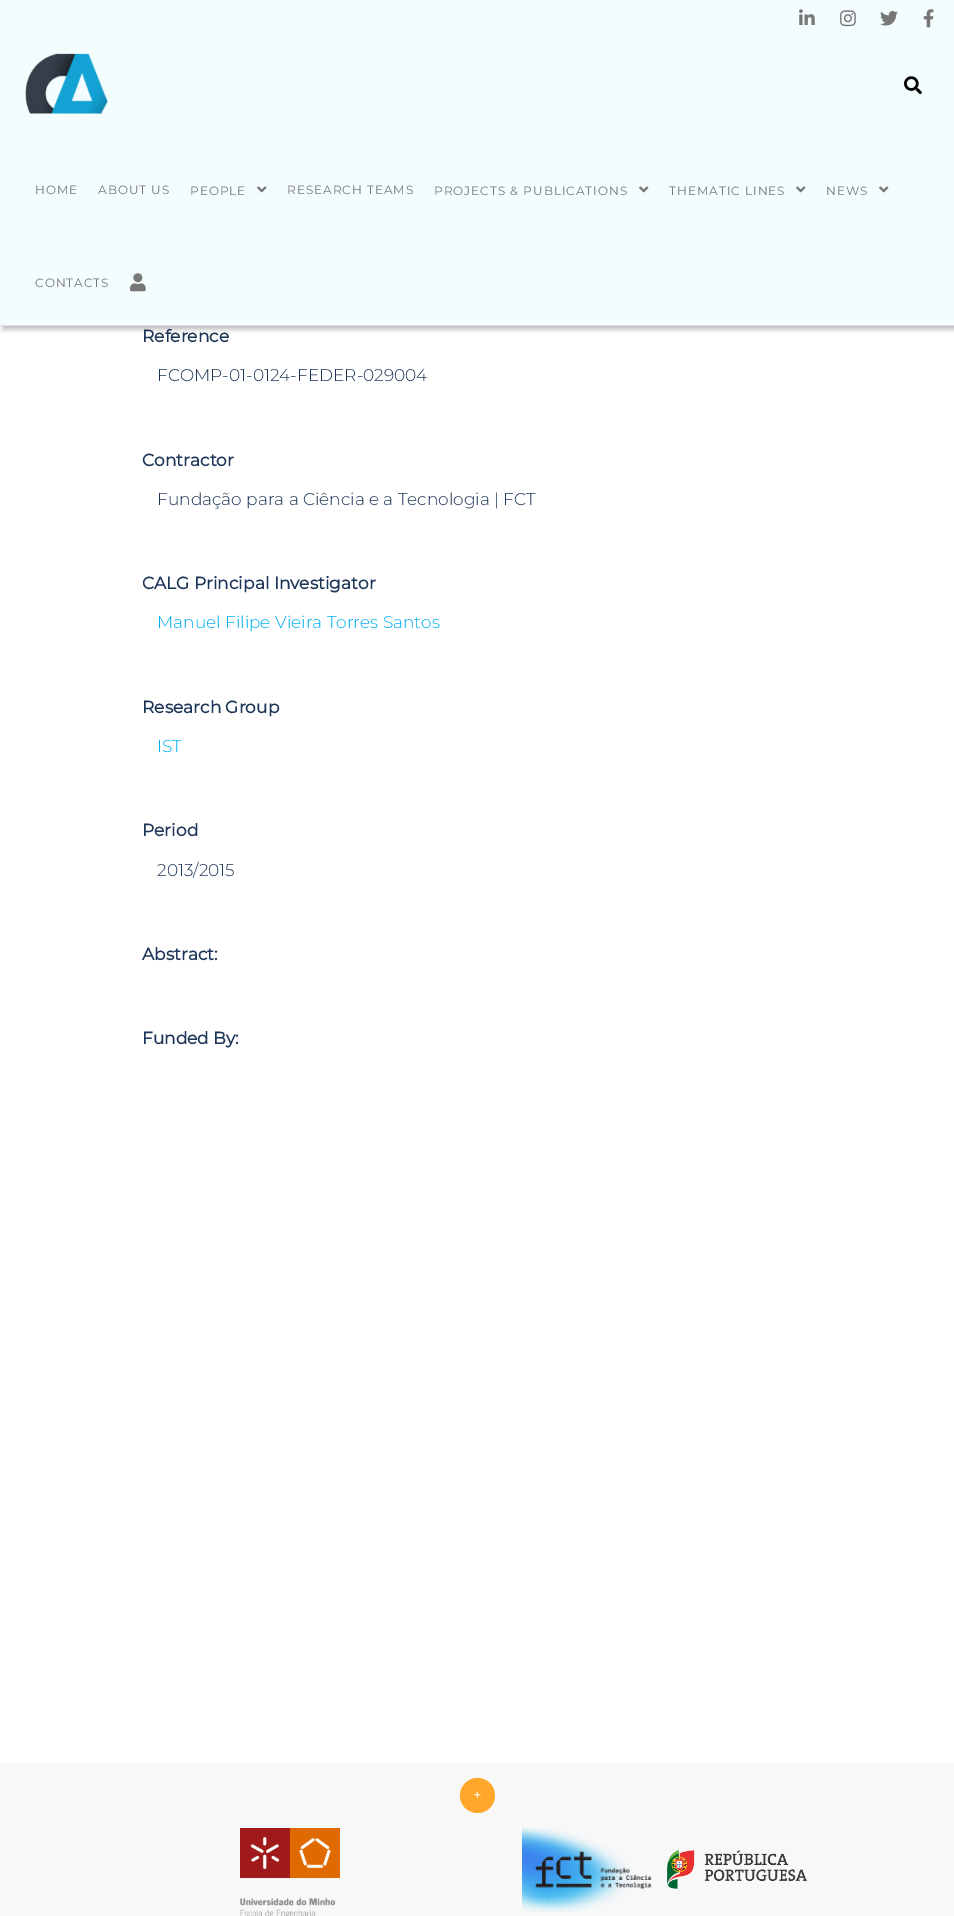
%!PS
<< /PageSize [954 1916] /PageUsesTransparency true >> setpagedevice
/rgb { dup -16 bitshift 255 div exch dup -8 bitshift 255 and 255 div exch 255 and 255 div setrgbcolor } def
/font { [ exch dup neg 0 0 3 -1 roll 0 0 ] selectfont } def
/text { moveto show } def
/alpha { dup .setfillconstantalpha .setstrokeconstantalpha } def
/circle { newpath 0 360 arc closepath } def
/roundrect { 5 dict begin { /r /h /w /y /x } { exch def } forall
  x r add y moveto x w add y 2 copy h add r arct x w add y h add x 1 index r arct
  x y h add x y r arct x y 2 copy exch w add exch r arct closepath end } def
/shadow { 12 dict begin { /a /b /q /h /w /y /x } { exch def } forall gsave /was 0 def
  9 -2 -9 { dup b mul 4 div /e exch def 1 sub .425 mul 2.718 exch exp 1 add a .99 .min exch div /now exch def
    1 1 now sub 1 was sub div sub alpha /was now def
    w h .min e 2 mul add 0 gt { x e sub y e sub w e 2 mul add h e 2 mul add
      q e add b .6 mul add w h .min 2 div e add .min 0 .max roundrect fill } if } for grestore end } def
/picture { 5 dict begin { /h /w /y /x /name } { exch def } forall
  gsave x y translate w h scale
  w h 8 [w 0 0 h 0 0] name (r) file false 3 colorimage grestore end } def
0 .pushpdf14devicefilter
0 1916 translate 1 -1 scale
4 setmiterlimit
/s1 { /Montserrat-Bold 17 font 16#1D3557 rgb } def
/s2 { /Montserrat-Light 17 font 16#1D3557 rgb } def
/s3 { /Montserrat-Light 17 font 16#00AFF2 rgb } def
/s4 { /Montserrat-Regular 15 font 16#FFFFFF rgb } def
16#FFFFFF rgb
0 0 954 1916 rectfill
16#F4FDFD rgb
0 0 954 325 rectfill
gsave
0 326 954 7 rectclip
16#000000 rgb
3 3 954 326 0 3 0.3 shadow
grestore
(pic1.raw) 799 9 16 16 picture
(pic2.raw) 840 10 16 17 picture
(pic3.raw) 880 10 18 16 picture
(pic4.raw) 923 9 11 19 picture
16#E2E2E2 rgb
0 325 954 1 rectfill
(pic5.raw) 25 53 83 61 picture
(pic6.raw) 904 76 18 19 picture
/Montserrat-Regular 12 font
16#777777 rgb
35 194 moveto 1 0 (HOME) ashow
98 194 moveto 1 0 (ABOUT US) ashow
190 195 moveto 1 0 (PEOPLE) ashow
(pic7.raw) 257 186 10 7 picture
287 194 moveto 1 0 (RESEARCH TEAMS) ashow
434 195 moveto 1 0 (PROJECTS & PUBLICATIONS) ashow
(pic7.raw) 639 186 10 7 picture
669 195 moveto 1 0 (THEMATIC LINES) ashow
(pic7.raw) 796 186 10 7 picture
826 195 moveto 1 0 (NEWS) ashow
(pic7.raw) 879 186 10 7 picture
35 287 moveto 1 0 (CONTACTS) ashow
(pic8.raw) 130 273 16 19 picture
s1
(Reference) 142 342 text
s2
(FCOMP-01-0124-FEDER-029004) 157 381 text
s1
(Contractor) 142 466 text
s2
(Fundação para a Ciência e a Tecnologia | FCT) 157 505 text
s1
(CALG Principal Investigator) 142 589 text
s3
(Manuel Filipe Vieira Torres Santos) 157 628 text
s1
(Research Group) 142 713 text
s3
(IST) 157 752 text
s1
(Period) 142 836 text
s2
(2013/2015) 157 876 text
s1
(Abstract:) 142 960 text
(Funded By:) 142 1044 text
16#F8F8F8 rgb
0 1763 954 153 rectfill
16#FFA62B rgb
477.5 1795.5 17.5 circle fill
s4
(+) 473 1800 text
(pic9.raw) 240 1828 100 88 picture
(pic10.raw) 522 1828 130 84 picture
(pic11.raw) 667 1850 140 39 picture
.poppdf14devicefilter showpage
